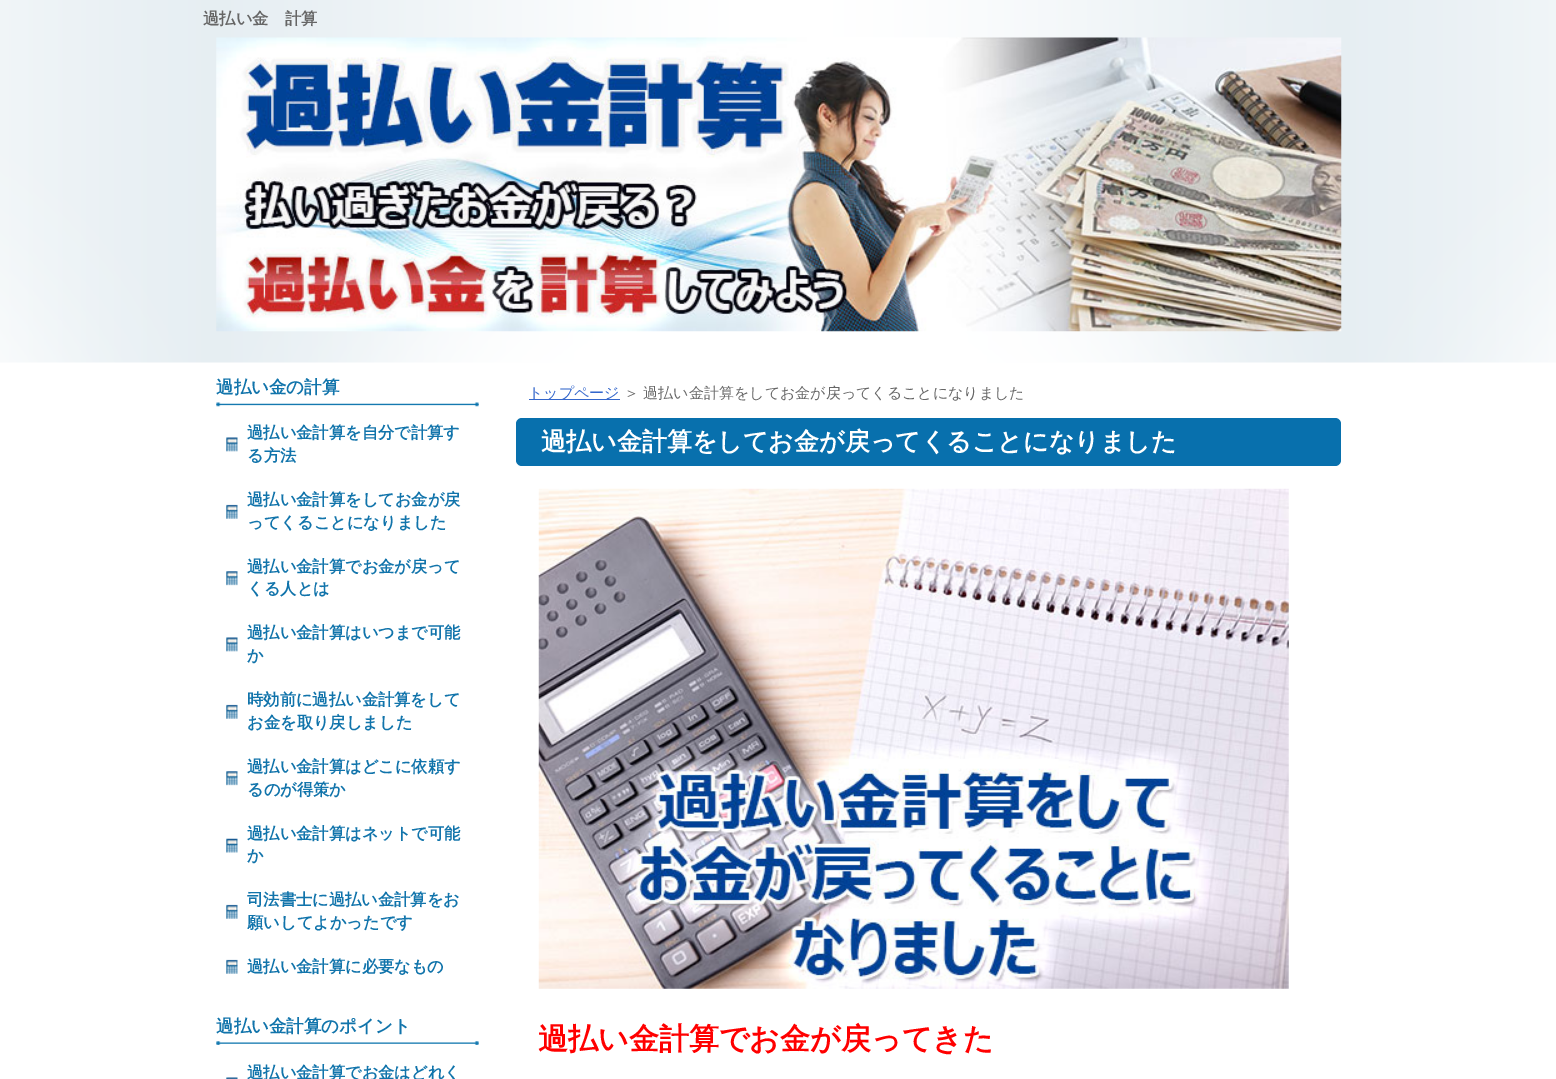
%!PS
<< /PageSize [1556 1079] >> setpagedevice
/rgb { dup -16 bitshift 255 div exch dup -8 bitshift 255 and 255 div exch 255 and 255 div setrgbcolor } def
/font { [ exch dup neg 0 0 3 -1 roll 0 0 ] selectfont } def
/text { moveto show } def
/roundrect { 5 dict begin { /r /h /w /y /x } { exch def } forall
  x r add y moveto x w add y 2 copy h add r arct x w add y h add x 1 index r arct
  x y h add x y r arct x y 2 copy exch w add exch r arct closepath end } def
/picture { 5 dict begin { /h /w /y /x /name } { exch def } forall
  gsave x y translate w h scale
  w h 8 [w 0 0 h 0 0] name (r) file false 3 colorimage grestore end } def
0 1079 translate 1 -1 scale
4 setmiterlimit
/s1 { /WenQuanYiZenHei-Bold 16.25 font 16#666666 rgb } def
/s2 { /WenQuanYiZenHei-Bold 17.5 font 16#1174AB rgb } def
/s3 { /WenQuanYiZenHei-Bold 16.25 font 16#1174AB rgb } def
/s4 { /WenQuanYiZenHei-Medium 15 font 16#3366CC rgb } def
/s5 { /WenQuanYiZenHei-Medium 15 font 16#666666 rgb } def
/s6 { /WenQuanYiZenHei-Bold 25 font 16#FFFFFF rgb } def
/s7 { /WenQuanYiZenHei-Bold 30 font 16#FF0000 rgb } def
16#FFFFFF rgb
0 0 1556 1079 rectfill
(pic1.raw) 0 0 1556 363 picture
s1
(過払い金　計算) 203 24 text
(pic2.raw) 216 37 1126 295 picture
(pic3.raw) 216 402 263 5 picture
s2
(過払い金の計算) 216 393 text
(pic4.raw) 226 437 12 15 picture
s3
(過払い金計算を自分で計算す) 247 438 text
(る方法) 247 461 text
(pic5.raw) 226 504 12 15 picture
(過払い金計算をしてお金が戻) 247 505 text
(ってくることになりました) 247 528 text
(pic6.raw) 226 571 12 15 picture
(過払い金計算でお金が戻って) 247 572 text
(くる人とは) 247 594 text
(pic4.raw) 226 637 12 15 picture
(過払い金計算はいつまで可能) 247 638 text
(か) 247 661 text
(pic5.raw) 226 704 12 15 picture
(時効前に過払い金計算をして) 247 705 text
(お金を取り戻しました) 247 728 text
(pic6.raw) 226 771 12 15 picture
(過払い金計算はどこに依頼す) 247 772 text
(るのが得策か) 247 795 text
(pic7.raw) 226 838 12 15 picture
(過払い金計算はネットで可能) 247 839 text
(か) 247 861 text
(pic5.raw) 226 904 12 15 picture
(司法書士に過払い金計算をお) 247 905 text
(願いしてよかったです) 247 928 text
(pic5.raw) 226 959 12 15 picture
(過払い金計算に必要なもの) 247 972 text
(pic8.raw) 216 1041 263 4 picture
s2
(過払い金計算のポイント) 216 1032 text
(pic9.raw) 226 1077 12 2 picture
s3
(過払い金計算でお金はどれく) 247 1078 text
16#3366CC rgb
529 399 91 1 rectfill
s4
(トップページ) 528 398 text
s5
(＞ 過払い金計算をしてお金が戻ってくることになりました) 624 398 text
16#0870AD rgb
516 418 825 48 6 roundrect fill
s6
(過払い金計算をしてお金が戻ってくることになりました) 541 450 text
(pic10.raw) 538 488 751 501 picture
s7
(過払い金計算でお金が戻ってきた) 538 1049 text
showpage
